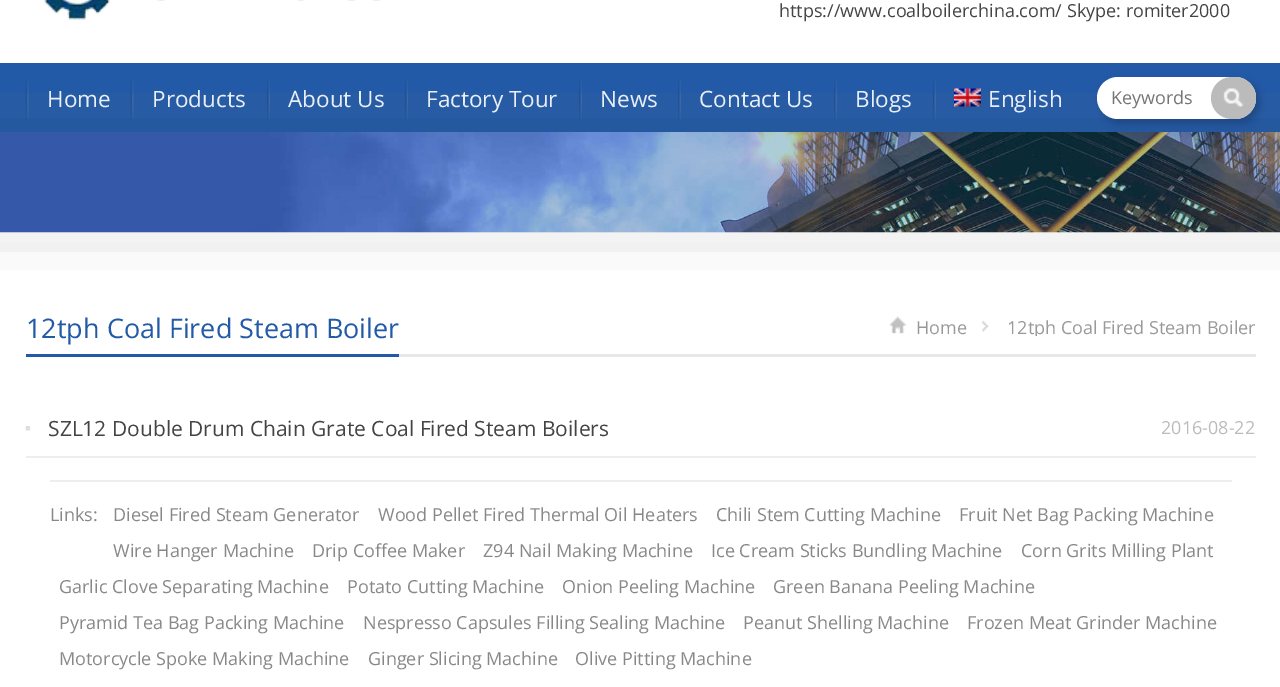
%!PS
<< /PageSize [1280 687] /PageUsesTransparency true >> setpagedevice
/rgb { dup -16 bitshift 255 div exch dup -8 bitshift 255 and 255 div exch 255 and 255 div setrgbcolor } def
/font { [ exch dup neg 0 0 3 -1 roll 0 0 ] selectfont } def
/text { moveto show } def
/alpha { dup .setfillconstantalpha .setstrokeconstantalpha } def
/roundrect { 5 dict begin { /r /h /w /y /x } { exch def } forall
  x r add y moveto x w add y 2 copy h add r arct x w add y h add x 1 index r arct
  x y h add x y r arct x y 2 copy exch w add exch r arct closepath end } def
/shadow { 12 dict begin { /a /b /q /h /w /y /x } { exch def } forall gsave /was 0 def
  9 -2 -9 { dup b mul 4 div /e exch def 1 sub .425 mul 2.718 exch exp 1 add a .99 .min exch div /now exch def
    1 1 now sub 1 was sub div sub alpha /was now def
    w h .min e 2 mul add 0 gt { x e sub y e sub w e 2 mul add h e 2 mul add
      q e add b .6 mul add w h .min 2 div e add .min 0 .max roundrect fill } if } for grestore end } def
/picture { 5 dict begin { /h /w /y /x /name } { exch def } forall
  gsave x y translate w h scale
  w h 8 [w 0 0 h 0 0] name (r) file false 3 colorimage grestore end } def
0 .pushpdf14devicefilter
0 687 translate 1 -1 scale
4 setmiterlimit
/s1 { /OpenSans-Regular 18 font 16#444444 rgb } def
/s2 { /OpenSans-Regular 22.5 font 16#E9EFF6 rgb } def
/s3 { /OpenSans-Regular 18 font 16#757575 rgb } def
/s4 { /OpenSans-Regular 27 font 16#225AA7 rgb } def
/s5 { /OpenSans-Regular 18 font 16#999999 rgb } def
/s6 { /OpenSans-Regular 21 font 16#444444 rgb } def
/s7 { /OpenSans-Regular 18 font 16#BBBBBB rgb } def
/s8 { /OpenSans-Regular 18 font 16#888888 rgb } def
16#FFFFFF rgb
0 0 1280 687 rectfill
(pic1.raw) 43 0 338 20 picture
s1
(https://www.coalboilerchina.com/ Skype: romiter2000) 779 17 text
16#225AA7 rgb
0 63 1280 69 rectfill
(pic2.raw) 0 93 1280 39 picture
(pic3.raw) 25 78 4 43 picture
s2
(Home) 47 107 text
(pic3.raw) 130 78 4 43 picture
(Products) 152 107 text
(pic4.raw) 267 78 3 44 picture
(About Us) 288 107 text
(pic4.raw) 405 78 3 44 picture
(Factory Tour) 426 107 text
(pic4.raw) 579 78 3 44 picture
(News) 600 107 text
(pic5.raw) 678 78 3 44 picture
(Contact Us) 699 107 text
(pic5.raw) 834 78 3 44 picture
(Blogs) 855 107 text
(pic5.raw) 933 78 3 44 picture
(pic6.raw) 954 88 27 19 picture
(English) 988 107 text
16#EEEEEE rgb
0 232 1280 1 rectfill
(pic8.raw) 0 132 1280 101 picture
16#000000 rgb
1101 81 159 42 21 4 0.2 shadow
16#FFFFFF rgb
1097 77 159 42 21 roundrect fill
s3
(Keywords) 1111 104 text
16#BBBBBB rgb
1211 77 45 42 21 roundrect fill
(pic7.raw) 1223 88 21 19 picture
(pic9.raw) 0 233 1280 37 picture
16#E8E8E8 rgb
399 354 857 3 rectfill
16#225AA7 rgb
26 354 373 3 rectfill
s4
(12tph Coal Fired Steam Boiler) 26 338 text
(pic10.raw) 889 316 18 18 picture
s5
(Home) 916 334 text
(pic11.raw) 982 320 7 12 picture
gsave
890 300 366 36 rectclip
(12tph Coal Fired Steam Boiler) 1007 334 text
grestore
(pic12.raw) 25 426 6 5 picture
16#EEEEEE rgb
26 456 1230 2 rectfill
s6
(SZL12 Double Drum Chain Grate Coal Fired Steam Boilers) 48 436 text
s7
(2016-08-22) 1161 434 text
16#EEEEEE rgb
50 480 1182 2 rectfill
s8
(Links:) 50 521 text
(Diesel Fired Steam Generator) 113 521 text
(Wood Pellet Fired Thermal Oil Heaters) 378 521 text
(Chili Stem Cutting Machine) 716 521 text
(Fruit Net Bag Packing Machine) 959 521 text
(Wire Hanger Machine) 113 557 text
(Drip Coffee Maker) 312 557 text
(Z94 Nail Making Machine) 483 557 text
(Ice Cream Sticks Bundling Machine) 711 557 text
(Corn Grits Milling Plant) 1021 557 text
(Garlic Clove Separating Machine) 59 593 text
(Potato Cutting Machine) 347 593 text
(Onion Peeling Machine) 562 593 text
(Green Banana Peeling Machine) 773 593 text
(Pyramid Tea Bag Packing Machine) 59 629 text
(Nespresso Capsules Filling Sealing Machine) 363 629 text
(Peanut Shelling Machine) 743 629 text
(Frozen Meat Grinder Machine) 967 629 text
(Motorcycle Spoke Making Machine) 59 665 text
(Ginger Slicing Machine) 368 665 text
(Olive Pitting Machine) 575 665 text
.poppdf14devicefilter showpage
